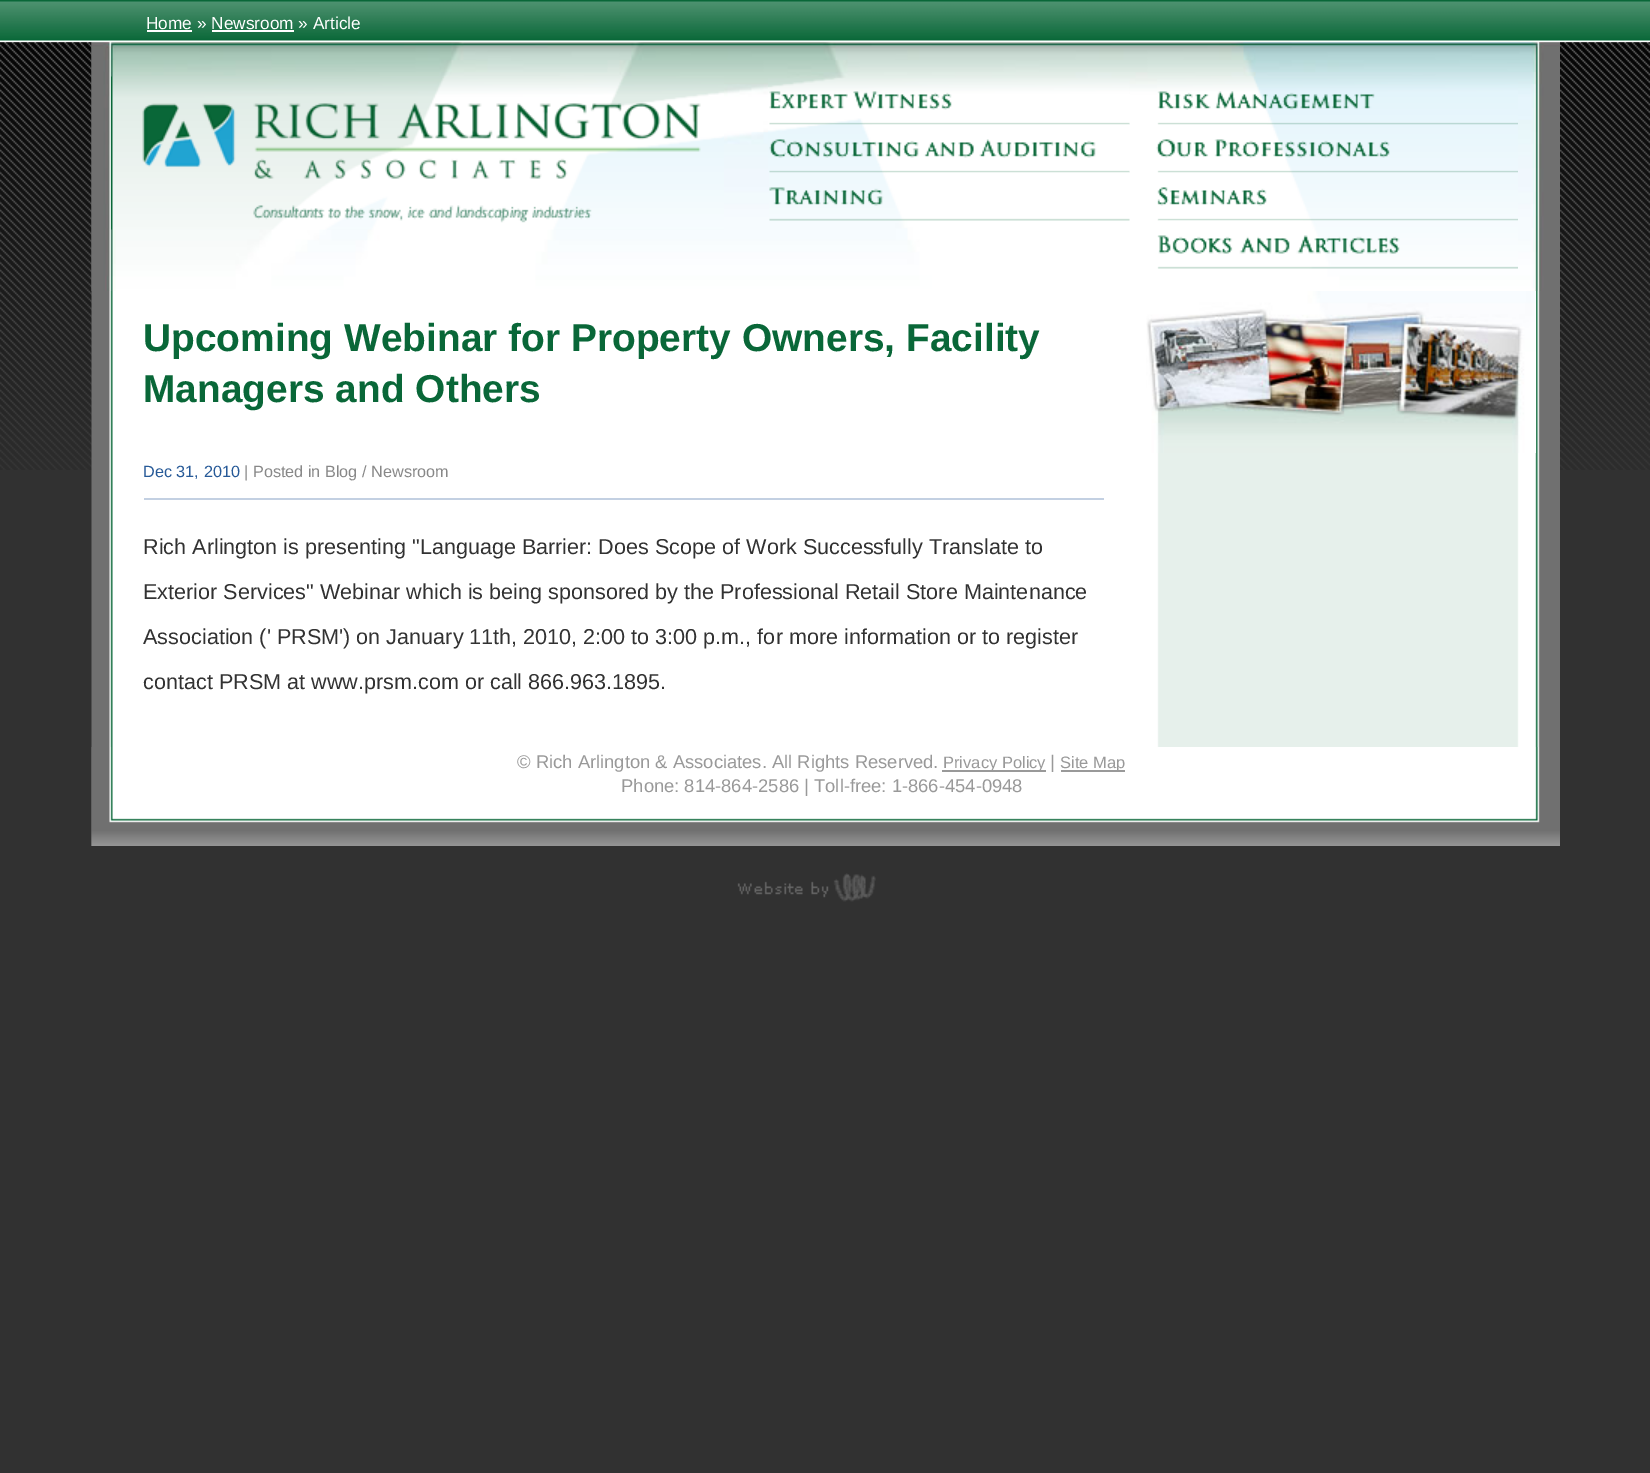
%!PS
<< /PageSize [1650 1473] >> setpagedevice
/rgb { dup -16 bitshift 255 div exch dup -8 bitshift 255 and 255 div exch 255 and 255 div setrgbcolor } def
/font { [ exch dup neg 0 0 3 -1 roll 0 0 ] selectfont } def
/text { moveto show } def
/picture { 5 dict begin { /h /w /y /x /name } { exch def } forall
  gsave x y translate w h scale
  w h 8 [w 0 0 h 0 0] name (r) file false 3 colorimage grestore end } def
0 1473 translate 1 -1 scale
4 setmiterlimit
/s1 { /LiberationSans-Regular 17.25 font 16#FFFFFF rgb } def
/s2 { /LiberationSans-Bold 38.9 font 16#096738 rgb } def
/s3 { /LiberationSans-Regular 16.25 font 16#275A98 rgb } def
/s4 { /LiberationSans-Regular 16.25 font 16#888888 rgb } def
/s5 { /LiberationSans-Regular 21.6 font 16#323232 rgb } def
/s6 { /LiberationSans-Regular 18.4 font 16#999999 rgb } def
/s7 { /LiberationSans-Regular 16.5 font 16#999999 rgb } def
16#313131 rgb
0 0 1650 1473 rectfill
(pic1.raw) 0 42 1650 428 picture
(pic2.raw) 91 42 1469 804 picture
(pic3.raw) 0 0 1650 42 picture
s1
(Home » Newsroom » Article) 146 29 text
147 30 45 2 rectfill
212 30 82 2 rectfill
(pic4.raw) 91 42 1469 249 picture
(pic5.raw) 111 76 613 154 picture
(pic6.raw) 768 78 362 47 picture
(pic7.raw) 1157 76 361 49 picture
(pic8.raw) 768 124 362 49 picture
(pic9.raw) 1156 124 362 49 picture
(pic10.raw) 769 172 361 49 picture
(pic11.raw) 1157 172 361 49 picture
(pic12.raw) 1157 220 361 49 picture
s2
(Upcoming Webinar for Property Owners, Facility) 143 351 text
(Managers and Others) 143 402 text
16#C3D0E2 rgb
144 498 960 2 rectfill
s3
(Dec 31, 2010) 143 477 text
s4
(| Posted in Blog / Newsroom) 244 477 text
s5
(Rich Arlington is presenting "Language Barrier: Does Scope of Work Successfully Translate to) 143 554 text
(Exterior Services" Webinar which is being sponsored by the) 143 599 text
(Professional Retail Store Maintenance) 720 599 text
(Association \(' PRSM'\) on January 11th, 2010, 2:00 to 3:00 p.m., for more information or to register) 143 644 text
(contact PRSM at www.prsm.com or call 866.963.1895.) 143 689 text
(pic13.raw) 1146 291 390 162 picture
(pic14.raw) 91 747 1469 99 picture
s6
(© Rich Arlington & Associates. All Rights Reserved.) 517 768 text
942 770 104 2 rectfill
s7
(Privacy Policy) 943 768 text
s6
(|) 1050 768 text
1061 770 64 2 rectfill
s7
(Site Map) 1060 768 text
s6
(Phone: 814-864-2586 | Toll-free: 1-866-454-0948) 621 792 text
(pic15.raw) 737 873 139 29 picture
showpage
